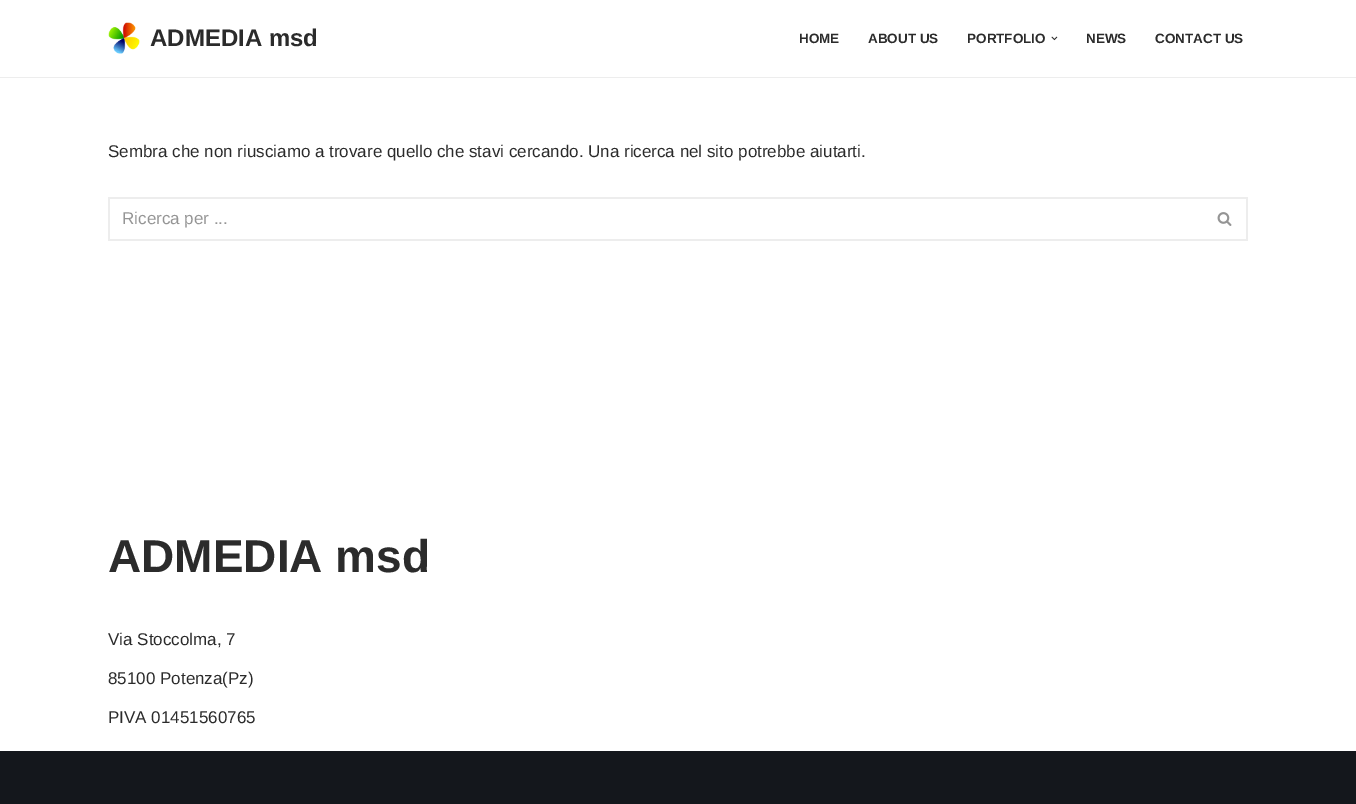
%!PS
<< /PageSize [1356 804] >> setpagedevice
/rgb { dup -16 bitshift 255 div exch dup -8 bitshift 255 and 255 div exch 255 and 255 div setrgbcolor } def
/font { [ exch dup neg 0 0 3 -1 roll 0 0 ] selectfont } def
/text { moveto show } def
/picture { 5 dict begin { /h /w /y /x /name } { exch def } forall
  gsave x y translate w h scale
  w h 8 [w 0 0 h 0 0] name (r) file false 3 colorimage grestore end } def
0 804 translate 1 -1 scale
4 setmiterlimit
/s1 { /LiberationSans-Bold 24 font 16#2B2B2B rgb } def
/s2 { /LiberationSans-Bold 13.5 font 16#2B2B2B rgb } def
/s3 { /LiberationSans-Regular 17 font 16#2B2B2B rgb } def
/s4 { /LiberationSans-Regular 17 font 16#959595 rgb } def
/s5 { /LiberationSans-Bold 46 font 16#2B2B2B rgb } def
16#FFFFFF rgb
0 0 1356 804 rectfill
16#EDEDED rgb
0 77 1356 1 rectfill
(pic1.raw) 108 22 32 32 picture
s1
(ADMEDIA msd) 150 46 text
s2
(HOME) 799 43 text
(ABOUT US) 868 43 text
(PORTFOLIO) 967 43 text
(pic2.raw) 1051 36 7 5 picture
(NEWS) 1086 43 text
(CONTACT US) 1155 43 text
s3
(Sembra che non riusciamo a trovare quello che stavi cercando. Una ricerca nel sito potrebbe aiutarti.) 108 157 text
16#EDEDED rgb
108 197 1140 2 rectfill
108 239 1095 2 rectfill
108 197 2 44 rectfill
s4
(Ricerca per ...) 122 224 text
16#EDEDED rgb
1246 197 2 44 rectfill
1203 239 45 2 rectfill
(pic3.raw) 1217 212 15 14 picture
s5
(ADMEDIA msd) 108 572 text
s3
(Via Stoccolma, 7) 108 645 text
(85100 Potenza\(Pz\)) 108 684 text
(PIVA 01451560765) 108 723 text
16#14171C rgb
0 751 1356 53 rectfill
showpage
